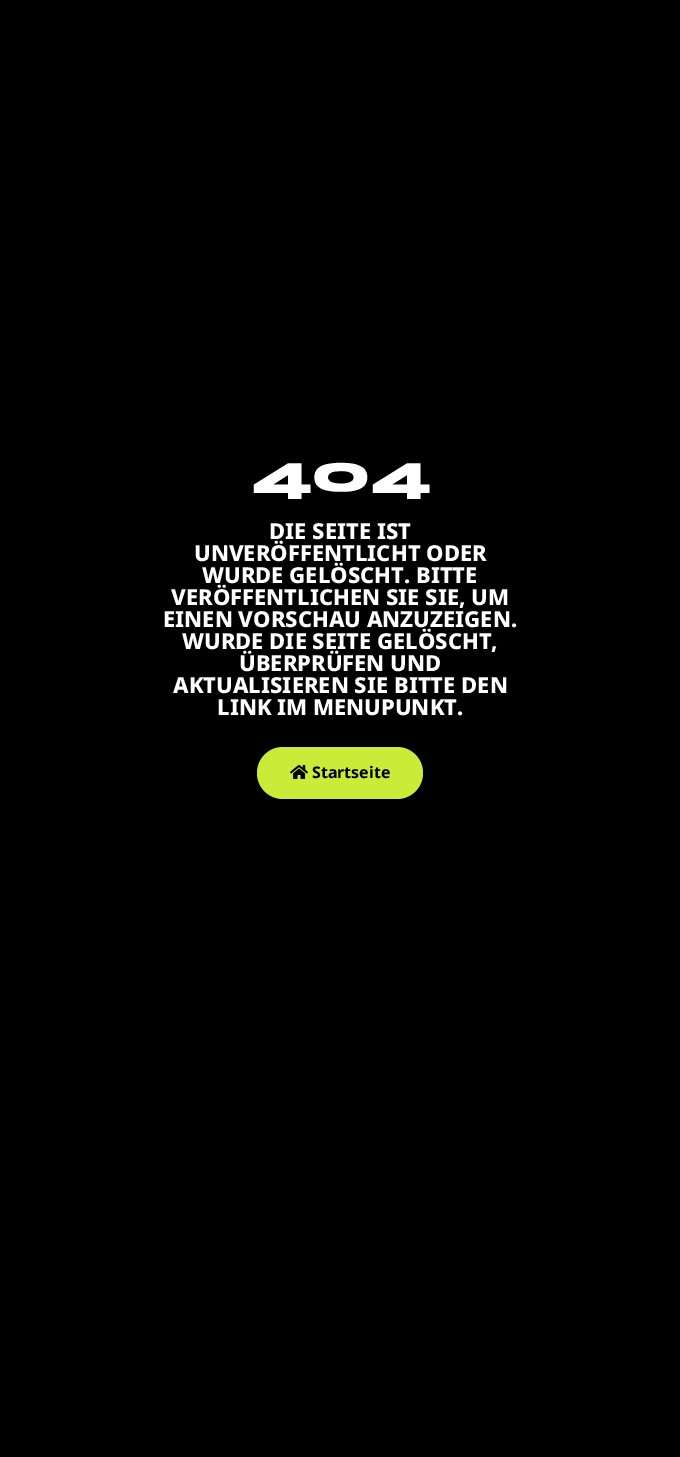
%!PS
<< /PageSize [680 1457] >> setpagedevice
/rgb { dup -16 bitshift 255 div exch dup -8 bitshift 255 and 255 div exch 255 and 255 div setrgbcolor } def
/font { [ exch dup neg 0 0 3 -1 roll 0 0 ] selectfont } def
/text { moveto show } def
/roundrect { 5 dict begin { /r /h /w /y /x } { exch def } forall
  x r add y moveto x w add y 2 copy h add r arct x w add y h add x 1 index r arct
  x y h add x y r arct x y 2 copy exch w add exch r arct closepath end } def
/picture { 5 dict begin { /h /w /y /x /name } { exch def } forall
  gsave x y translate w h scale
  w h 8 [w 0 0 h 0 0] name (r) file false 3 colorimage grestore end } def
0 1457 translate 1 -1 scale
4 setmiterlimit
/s1 { /NotoSans-ExtraBold 22 font 16#FFFFFF rgb } def
/s2 { /NotoSans-Bold 16 font 16#000000 rgb } def
16#000000 rgb
0 0 680 1457 rectfill
/Syne-ExtraBold 56 font
16#FFFFFF rgb
251 491 moveto -1 0 (404) ashow
s1
(DIE SEITE IST) 269 539 text
(UNVERÖFFENTLICHT ODER) 194 561 text
(WURDE GELÖSCHT. BITTE) 202 583 text
(VERÖFFENTLICHEN SIE SIE, UM) 171 605 text
(EINEN VORSCHAU ANZUZEIGEN.) 163 627 text
(WURDE DIE SEITE GELÖSCHT,) 182 649 text
(ÜBERPRÜFEN UND) 239 671 text
(AKTUALISIEREN SIE BITTE DEN) 173 693 text
(LINK IM MENUPUNKT.) 217 715 text
16#CAEB38 rgb
257 747 166 52 26 roundrect fill
(pic1.raw) 290 765 18 14 picture
s2
(Startseite) 312 778 text
showpage
